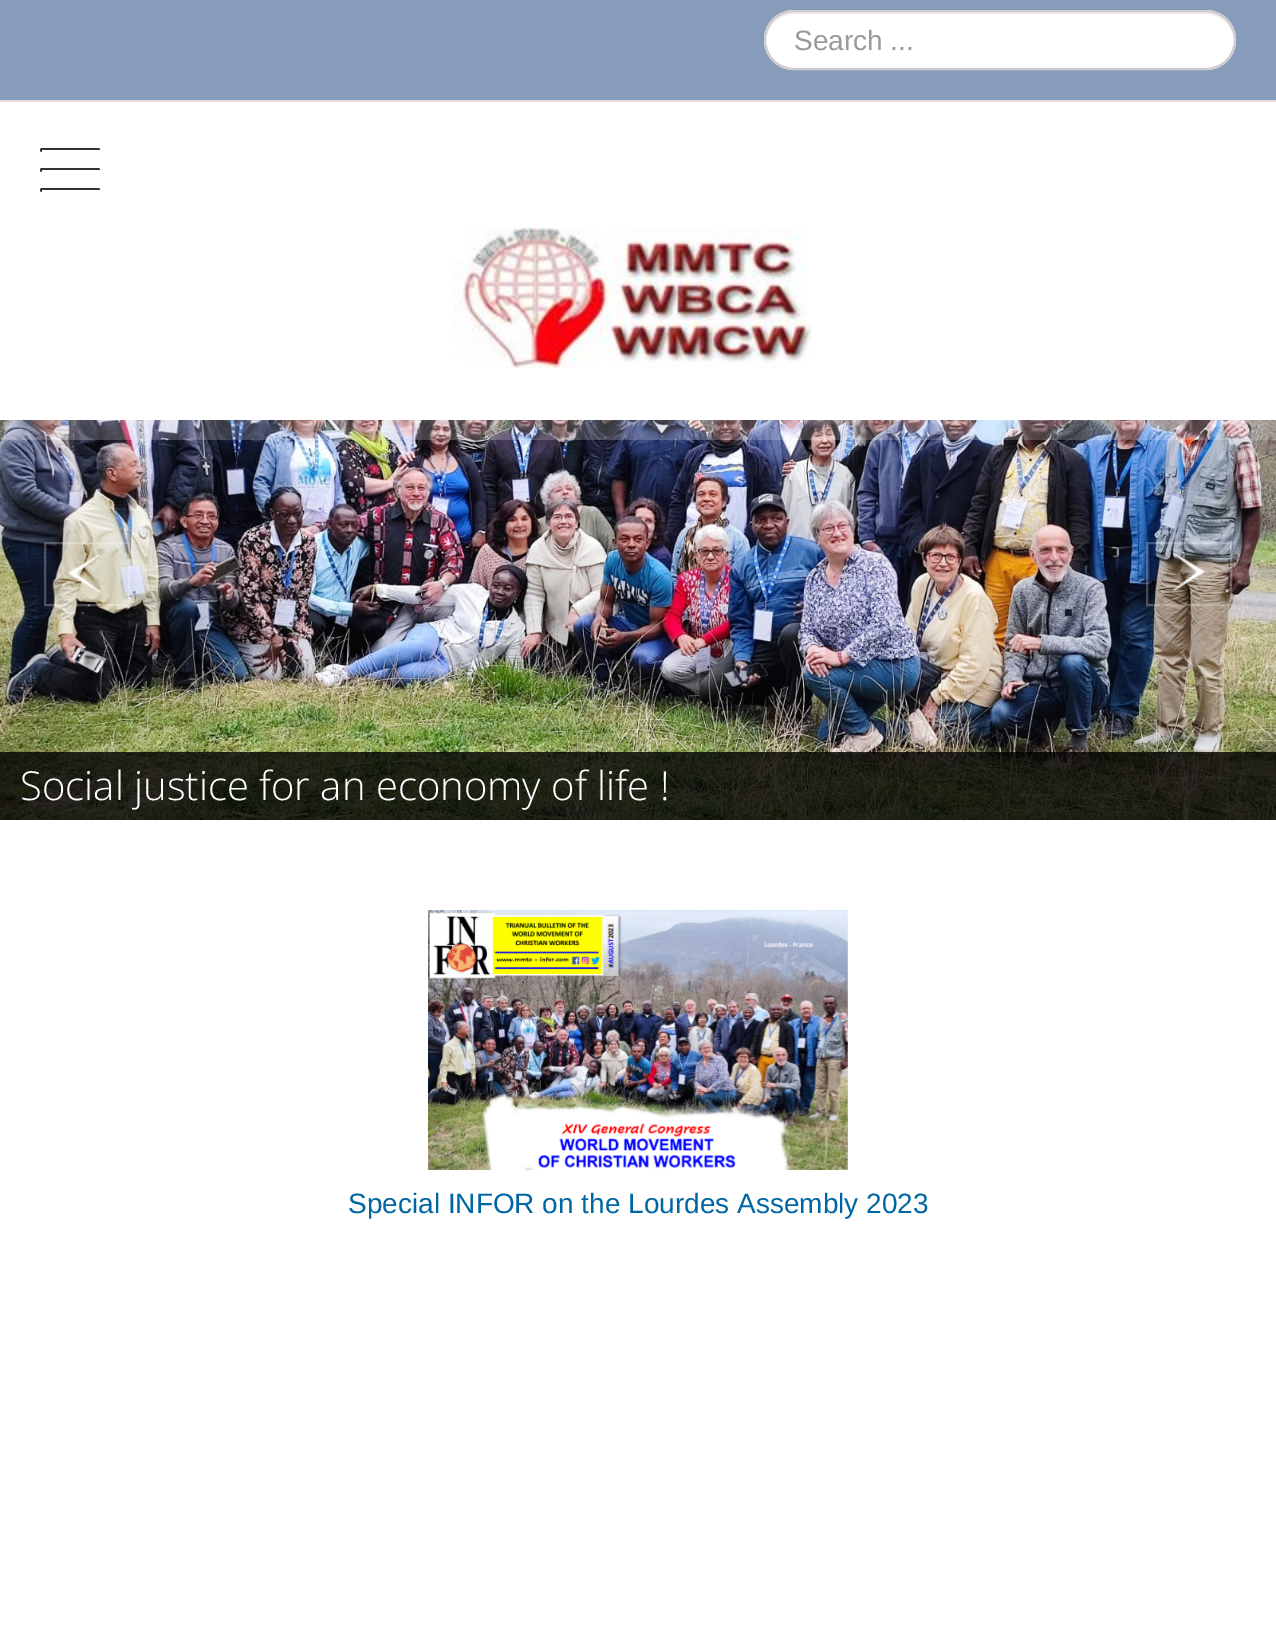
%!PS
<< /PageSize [1276 1634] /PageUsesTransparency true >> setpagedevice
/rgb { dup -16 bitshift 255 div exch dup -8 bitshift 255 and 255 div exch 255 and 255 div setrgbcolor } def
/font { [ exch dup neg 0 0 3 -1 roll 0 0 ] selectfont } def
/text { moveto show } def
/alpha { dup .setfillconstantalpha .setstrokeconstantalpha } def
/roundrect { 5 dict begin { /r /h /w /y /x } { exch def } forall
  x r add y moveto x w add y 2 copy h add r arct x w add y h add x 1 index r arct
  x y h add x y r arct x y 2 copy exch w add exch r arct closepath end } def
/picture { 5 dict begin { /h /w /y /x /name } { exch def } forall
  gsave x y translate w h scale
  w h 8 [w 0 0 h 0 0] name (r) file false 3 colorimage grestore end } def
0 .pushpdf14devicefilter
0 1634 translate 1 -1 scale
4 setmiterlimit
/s1 { /LiberationSans-Regular 28 font 16#999999 rgb } def
/s2 { /OpenSans-Light 40 font 16#FFFFFF rgb } def
/s3 { /LiberationSans-Regular 28 font 16#0066A2 rgb } def
16#FFFFFF rgb
0 0 1276 1634 rectfill
16#879BBA rgb
0 0 1276 100 rectfill
16#E8DCDC rgb
0 100 1276 2 rectfill
16#FFFFFF rgb
764 10 472 60 30 roundrect fill
16#ECECEC rgb
794 14 moveto 1206 14 lineto 1221 14 1233 26 1234 41 curveto 1235 25 1222 12 1206 12 curveto 794 12 lineto 778 12 765 25 766 41 curveto 767 26 779 14 794 14 curveto closepath fill
16#CCCCCC rgb
2 setlinewidth
765 11 470 58 29 roundrect stroke
s1
(Search ...) 794 50 text
16#333333 rgb
40 148 60 4 2 roundrect fill
16#FFFFFF rgb
42 150 58 2 rectfill
16#333333 rgb
40 168 60 4 2 roundrect fill
16#FFFFFF rgb
42 170 58 2 rectfill
16#333333 rgb
40 188 60 4 2 roundrect fill
16#FFFFFF rgb
42 190 58 2 rectfill
(pic1.raw) 454 228 358 140 picture
(pic2.raw) 0 420 1276 400 picture
0.2 alpha
0 420 1276 20 rectfill
0.25 alpha
45 543 84 62 rectstroke
1 alpha
(pic3.raw) 68 554 32 39 picture
0.25 alpha
1147 543 84 62 rectstroke
1 alpha
(pic4.raw) 1173 552 32 39 picture
0.8 alpha
16#000000 rgb
0 752 1276 68 rectfill
1 alpha
s2
(Social justice for an economy of life !) 20 800 text
(pic5.raw) 428 910 420 260 picture
s3
(Special INFOR on the Lourdes Assembly 2023) 348 1213 text
.poppdf14devicefilter showpage
